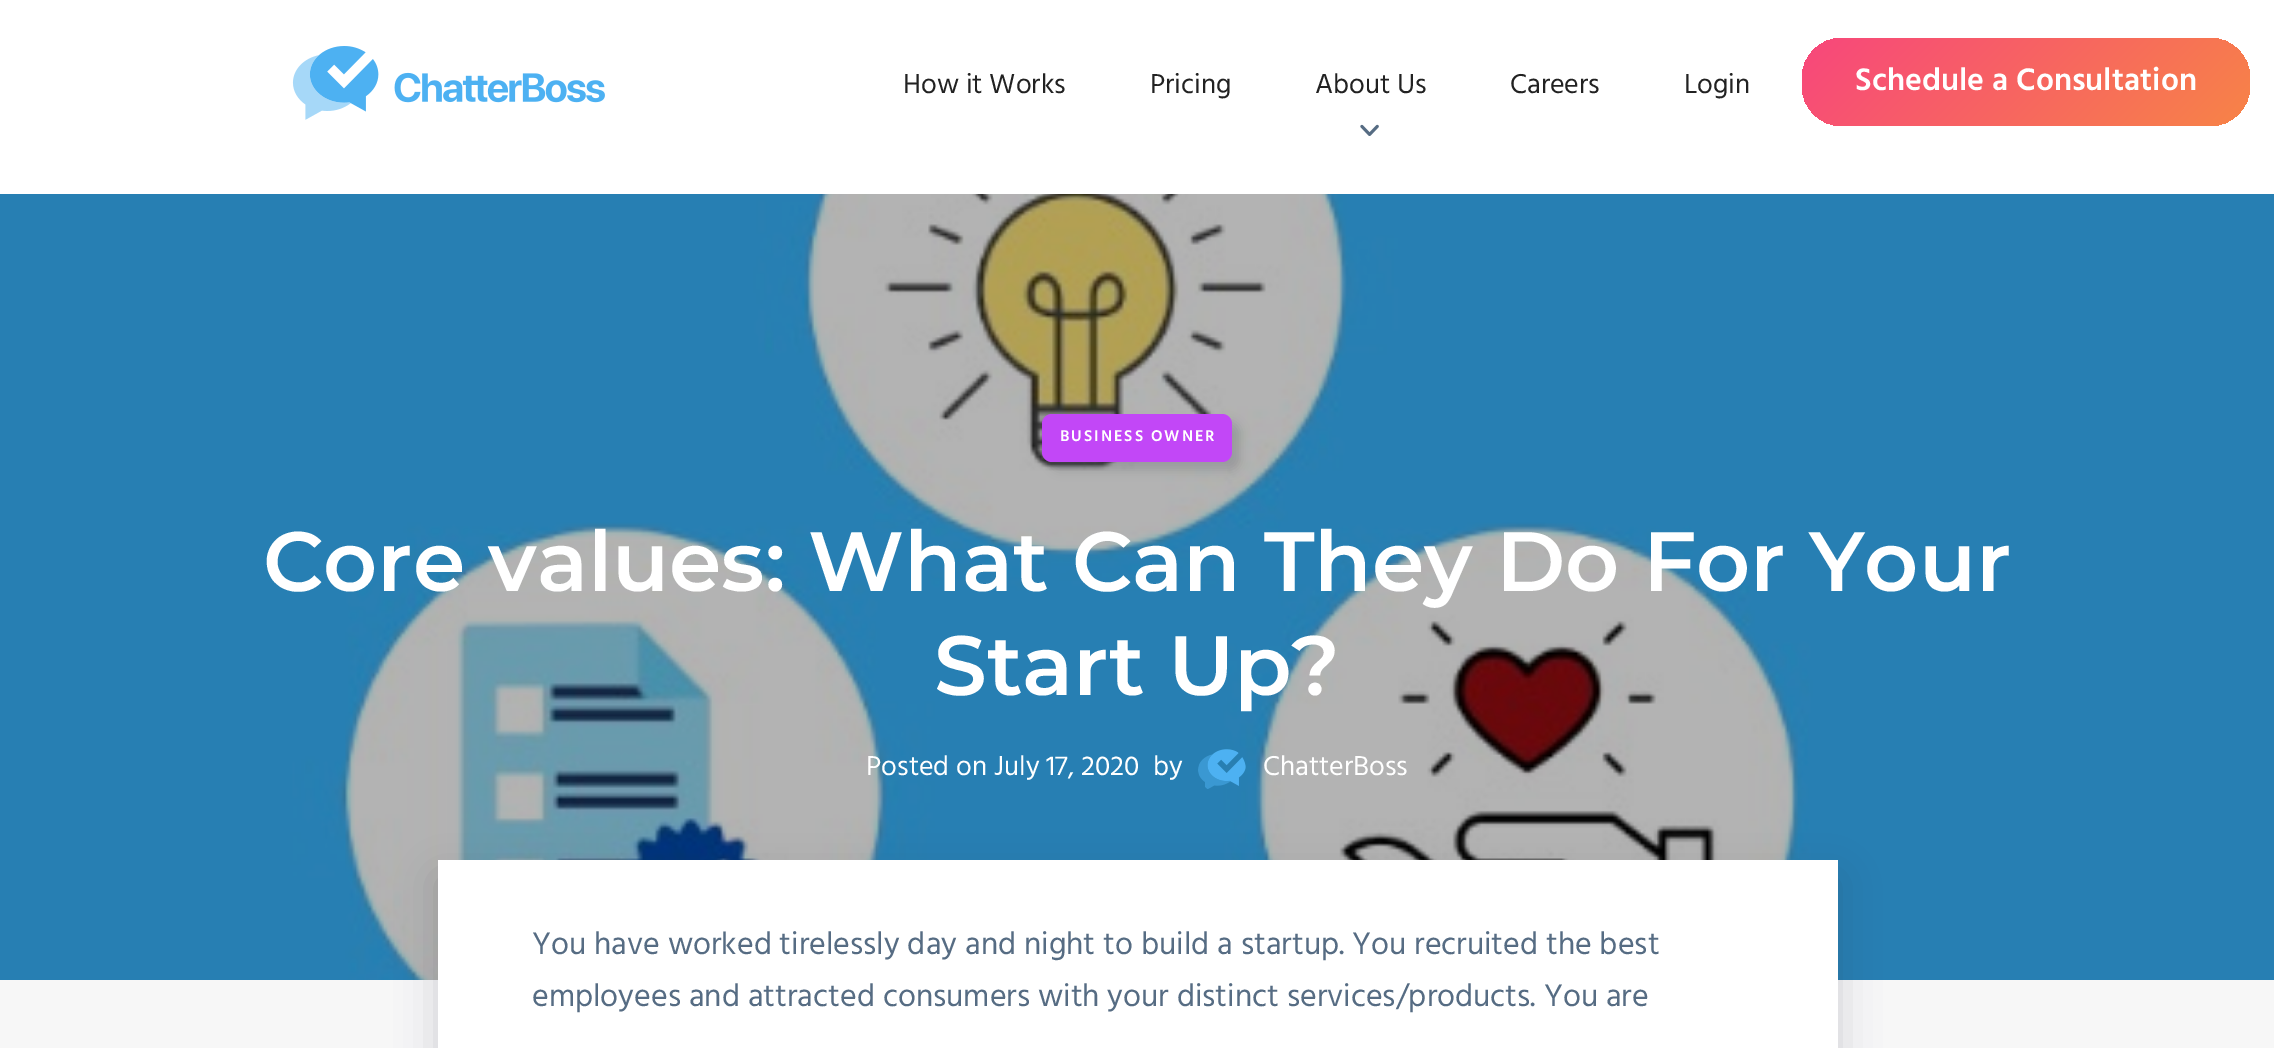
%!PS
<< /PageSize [2274 1048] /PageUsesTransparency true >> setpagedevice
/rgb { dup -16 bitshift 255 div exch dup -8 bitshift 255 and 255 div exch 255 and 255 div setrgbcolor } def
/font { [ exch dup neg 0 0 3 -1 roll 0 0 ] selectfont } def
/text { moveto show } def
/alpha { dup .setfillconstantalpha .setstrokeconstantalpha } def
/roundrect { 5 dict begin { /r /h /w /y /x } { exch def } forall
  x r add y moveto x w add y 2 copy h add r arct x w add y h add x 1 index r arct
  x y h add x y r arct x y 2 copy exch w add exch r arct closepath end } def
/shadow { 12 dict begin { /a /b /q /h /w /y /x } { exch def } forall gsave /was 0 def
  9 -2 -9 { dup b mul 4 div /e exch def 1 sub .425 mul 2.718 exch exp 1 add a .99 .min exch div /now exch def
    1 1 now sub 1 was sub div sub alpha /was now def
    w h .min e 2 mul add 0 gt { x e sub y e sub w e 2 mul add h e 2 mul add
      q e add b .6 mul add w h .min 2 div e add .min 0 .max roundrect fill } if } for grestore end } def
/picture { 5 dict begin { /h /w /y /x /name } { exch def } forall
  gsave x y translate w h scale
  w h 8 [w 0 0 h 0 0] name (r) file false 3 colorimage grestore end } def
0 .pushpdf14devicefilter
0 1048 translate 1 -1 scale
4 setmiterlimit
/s1 { /Hind-Regular 28 font 16#222222 rgb } def
/s2 { /Hind-SemiBold 32 font 16#FFFFFF rgb } def
/s3 { /Montserrat-SemiBold 84 font 16#FFFFFF rgb } def
/s4 { /Hind-Regular 28 font 16#FFFFFF rgb } def
/s5 { /Hind-Regular 32 font 16#566C83 rgb } def
16#FFFFFF rgb
0 0 2274 1048 rectfill
(pic1.raw) 292 46 313 74 picture
s1
(How it Works) 903 93 text
(Pricing) 1150 93 text
(About Us) 1315 93 text
(pic2.raw) 1360 124 19 12 picture
(Careers) 1510 93 text
(Login) 1684 93 text
gsave 1802 38 448 88 40 roundrect clip newpath
<< /ShadingType 2 /ColorSpace /DeviceRGB /Coords [1892 -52 2160 216] /Extend [true true] /Function << /FunctionType 2 /Domain [0 1] /C0 [0.969 0.278 0.486] /C1 [0.969 0.518 0.278] /N 1 >> >> shfill grestore
s2
(Schedule a Consultation) 1855 90 text
(pic3.raw) 0 194 2274 786 picture
16#2C3340 rgb
1050 422 190 48 10 5 0.19 shadow
16#C247F7 rgb
1042 414 190 48 10 roundrect fill
/Hind-SemiBold 16 font
16#FFFFFF rgb
1060 441 moveto 2 0 (BUSINESS OWNER) ashow
s3
(Core values: What Can They Do For Your) 263 591 text
(Start Up?) 934 695 text
s4
(Posted on July 17, 2020) 866 775 text
(by) 1153 775 text
(pic4.raw) 1198 749 48 40 picture
(ChatterBoss) 1263 775 text
16#F7F7F7 rgb
0 980 2274 68 rectfill
16#2C3340 rgb
438 878 1400 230 0 20 0.2 shadow
16#FFFFFF rgb
438 860 1400 188 rectfill
s5
(You have worked tirelessly day and night to build a startup. You recruited the best) 532 954 text
(employees and attracted consumers with your distinct services/products. You are) 532 1006 text
.poppdf14devicefilter showpage
